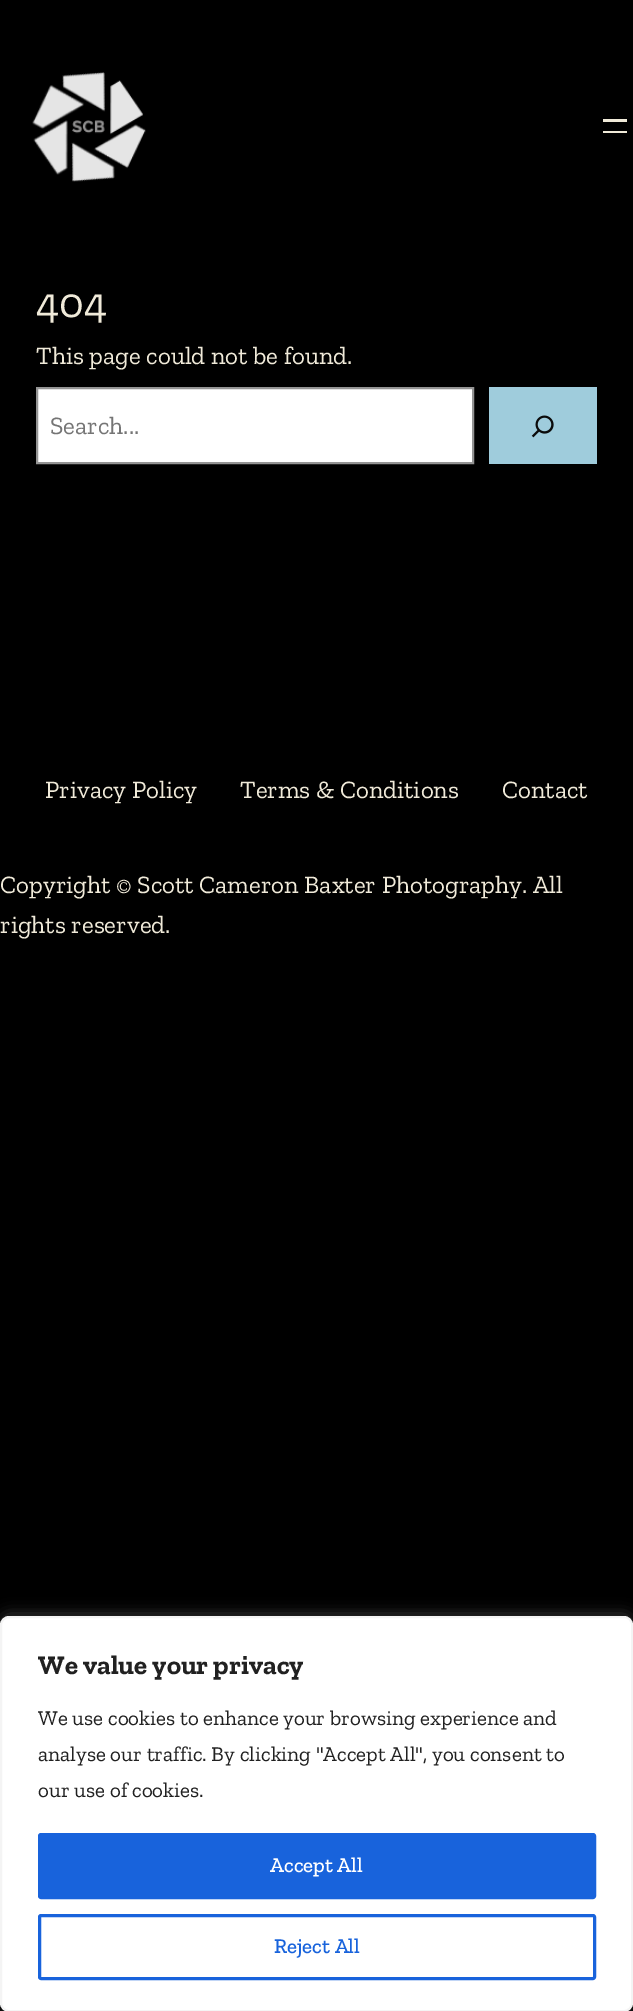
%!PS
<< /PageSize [633 2011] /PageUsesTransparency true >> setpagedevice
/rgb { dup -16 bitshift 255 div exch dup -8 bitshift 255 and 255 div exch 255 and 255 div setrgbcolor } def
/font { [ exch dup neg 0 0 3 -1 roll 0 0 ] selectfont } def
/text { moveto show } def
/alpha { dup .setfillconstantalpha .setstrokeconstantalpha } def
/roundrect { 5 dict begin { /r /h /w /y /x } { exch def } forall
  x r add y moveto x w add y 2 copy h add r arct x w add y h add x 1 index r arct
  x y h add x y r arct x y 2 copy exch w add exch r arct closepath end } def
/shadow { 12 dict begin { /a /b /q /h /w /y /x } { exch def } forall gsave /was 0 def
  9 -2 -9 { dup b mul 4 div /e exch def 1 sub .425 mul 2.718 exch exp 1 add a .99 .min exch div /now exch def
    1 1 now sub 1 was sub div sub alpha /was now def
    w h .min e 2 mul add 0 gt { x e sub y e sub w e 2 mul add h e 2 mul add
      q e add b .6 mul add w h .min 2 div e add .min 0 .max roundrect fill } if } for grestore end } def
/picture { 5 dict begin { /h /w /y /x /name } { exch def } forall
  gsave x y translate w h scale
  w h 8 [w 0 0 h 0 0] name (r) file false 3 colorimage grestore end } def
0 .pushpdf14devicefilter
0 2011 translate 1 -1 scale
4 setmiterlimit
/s1 { /ZillaSlab-Regular 43 font 16#F0EAD9 rgb } def
/s2 { /ZillaSlab-Regular 25.05 font 16#F0EAD9 rgb } def
/s3 { /ZillaSlab-Regular 25.05 font 16#757575 rgb } def
/s4 { /ZillaSlab-Bold 27 font 16#212121 rgb } def
/s5 { /ZillaSlab-Regular 21 font 16#212121 rgb } def
/s6 { /ZillaSlab-Medium 21 font 16#FFFFFF rgb } def
/s7 { /ZillaSlab-Medium 21 font 16#1863DC rgb } def
16#000000 rgb
0 0 633 2011 rectfill
(pic1.raw) 32 72 114 110 picture
16#F0EAD9 rgb
603 119 24 3 rectfill
603 131 24 2 rectfill
s1
(404) 36 317 text
s2
(This page could not be found.) 36 364 text
16#FFFFFF rgb
37 388 moveto 473 388 lineto 473 463 lineto 37 463 lineto closepath gsave fill grestore
16#949494 rgb
2 setlinewidth
stroke
s3
(Search...) 50 434 text
16#9FCCDC rgb
489 387 108 77 rectfill
(pic2.raw) 531 415 23 23 picture
s2
(Privacy Policy) 45 798 text
(Terms & Conditions) 240 798 text
(Contact) 502 798 text
(Copyright © Scott Cameron Baxter Photography. All) 0 893 text
(rights reserved.) 0 933 text
16#ACABAB rgb
0 1614 633 396 9 7.5 0.3 shadow
16#FFFFFF rgb
1 1617 631 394 8 roundrect gsave fill grestore
16#F4F4F4 rgb
stroke
s4
(We value your privacy) 38 1674 text
s5
(We use cookies to enhance your browsing experience and) 38 1725 text
(analyse our traffic. By clicking "Accept All", you consent to) 38 1761 text
(our use of cookies.) 38 1797 text
16#1863DC rgb
39.5 1834.5 555 63 1.5 roundrect gsave fill grestore
3 setlinewidth
stroke
s6
(Accept All) 270 1872 text
16#1863DC rgb
39.5 1915.5 555 63 1.5 roundrect stroke
(Reject All) 274 1953 text
.poppdf14devicefilter showpage
